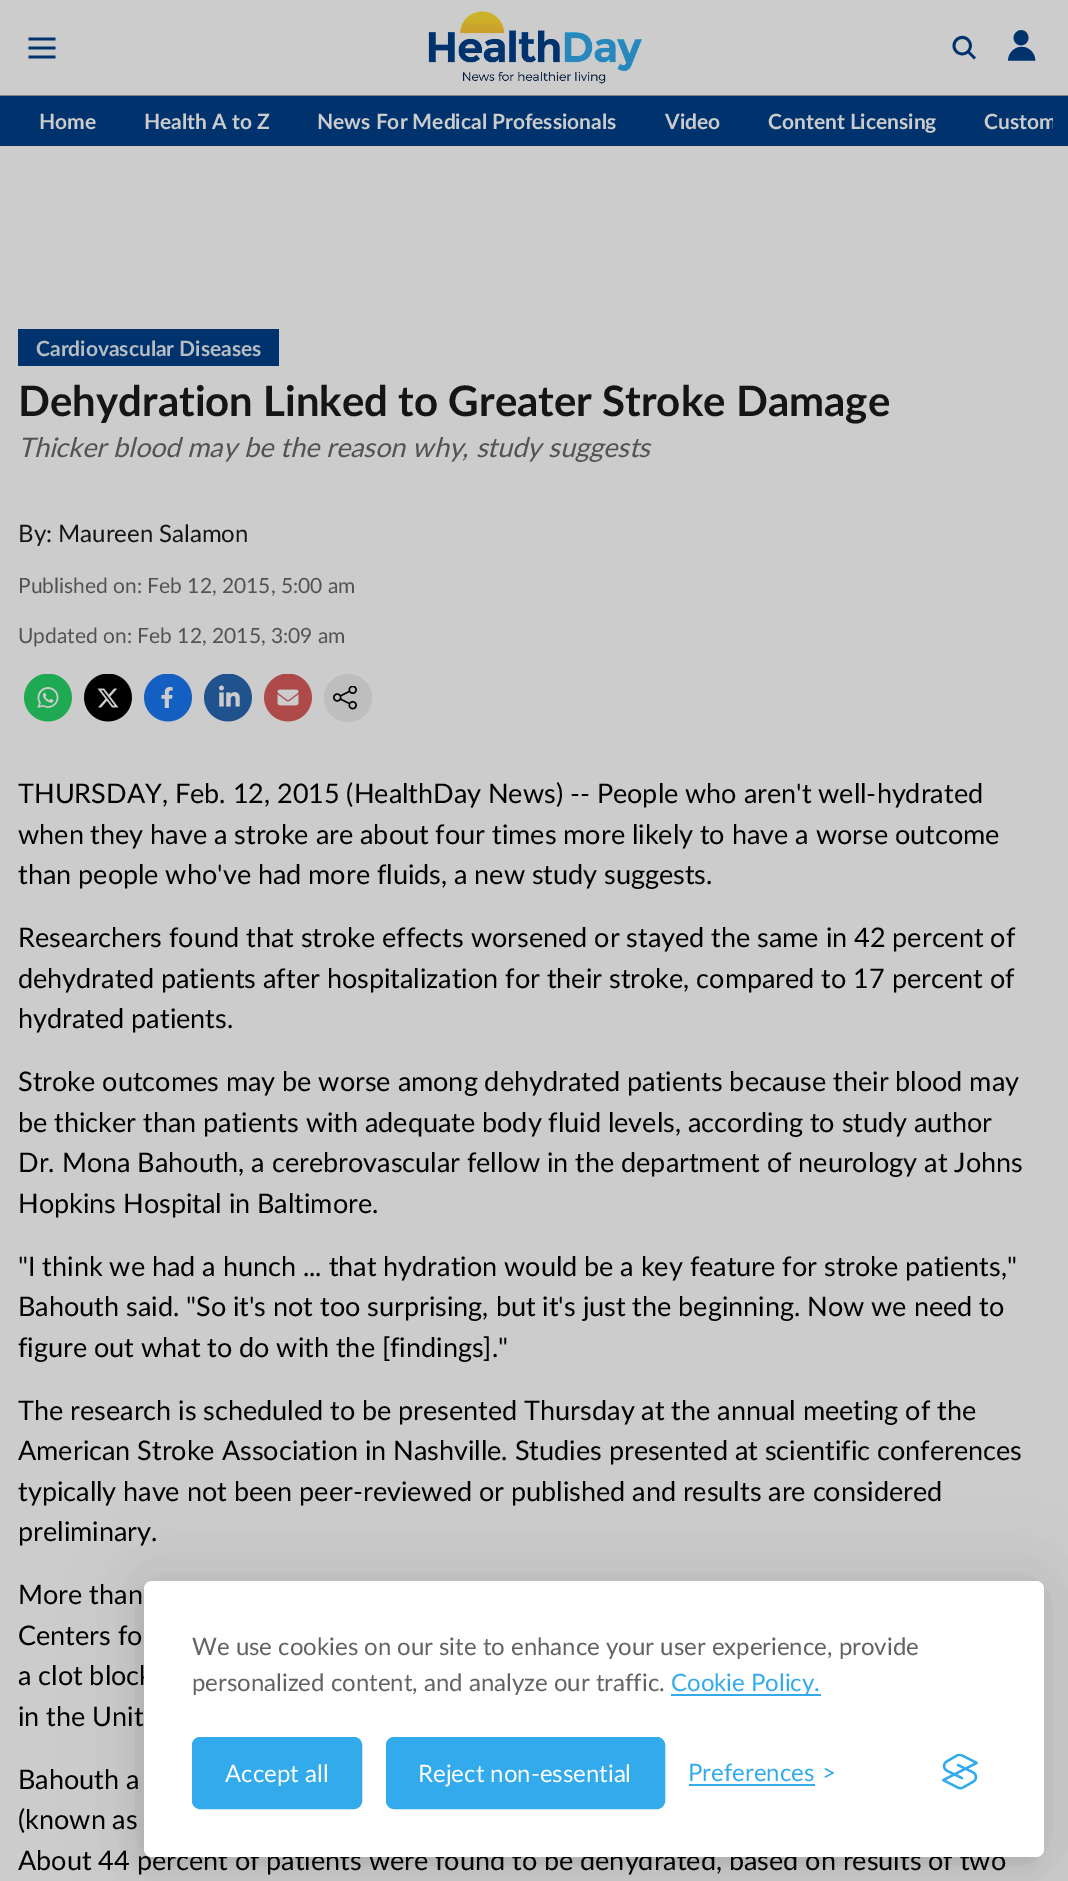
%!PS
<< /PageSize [1068 1881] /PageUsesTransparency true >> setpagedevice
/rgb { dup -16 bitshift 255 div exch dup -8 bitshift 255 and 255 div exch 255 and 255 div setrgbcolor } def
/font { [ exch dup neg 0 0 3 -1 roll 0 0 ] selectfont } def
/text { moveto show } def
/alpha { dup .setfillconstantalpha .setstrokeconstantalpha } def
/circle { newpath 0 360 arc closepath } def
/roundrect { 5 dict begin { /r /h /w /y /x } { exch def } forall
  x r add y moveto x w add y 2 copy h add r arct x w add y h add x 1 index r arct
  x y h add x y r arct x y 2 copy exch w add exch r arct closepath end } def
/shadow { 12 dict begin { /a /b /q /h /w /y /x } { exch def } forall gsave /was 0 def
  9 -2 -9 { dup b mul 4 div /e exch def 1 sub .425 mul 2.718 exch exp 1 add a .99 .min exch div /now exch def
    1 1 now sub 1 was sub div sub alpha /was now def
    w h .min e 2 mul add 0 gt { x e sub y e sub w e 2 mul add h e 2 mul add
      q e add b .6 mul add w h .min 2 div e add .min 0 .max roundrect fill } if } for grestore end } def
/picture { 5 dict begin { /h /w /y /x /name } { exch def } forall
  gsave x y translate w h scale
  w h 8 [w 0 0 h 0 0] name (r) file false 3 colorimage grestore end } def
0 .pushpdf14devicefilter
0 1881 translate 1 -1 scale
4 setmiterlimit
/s1 { /Lato-Bold 21 font 16#CCCCCC rgb } def
/s2 { /Lato-Bold 21 font 16#B8BDC2 rgb } def
/s3 { /Lato-Bold 42 font 16#151515 rgb } def
/s4 { /Lato-Italic 27 font 16#525252 rgb } def
/s5 { /Lato-Regular 24 font 16#151515 rgb } def
/s6 { /Lato-Regular 21 font 16#525252 rgb } def
/s7 { /Lato-Regular 27 font 16#000000 rgb } def
/s8 { /Lato-Regular 24 font 16#626262 rgb } def
/s9 { /Lato-Regular 24 font 16#32AAEC rgb } def
/s10 { /Lato-Regular 24 font 16#FFFFFF rgb } def
16#CCCCCC rgb
0 0 1068 1881 rectfill
16#838383 rgb
0 95 1068 1 rectfill
(pic1.raw) 28 37 28 22 picture
(pic2.raw) 428 11 214 73 picture
(pic3.raw) 952 35 24 25 picture
(pic4.raw) 1008 30 28 31 picture
16#00336E rgb
0 96 1068 50 rectfill
s1
(Home) 39 129 text
(Health A to Z) 144 129 text
(News For Medical Professionals) 317 129 text
(Video) 665 129 text
(Content Licensing) 768 129 text
gsave
15 96 1038 50 rectclip
(Custom) 984 129 text
grestore
16#00336E rgb
18 329 261 37 rectfill
s2
(Cardiovascular Diseases) 36 356 text
s3
(Dehydration Linked to Greater Stroke Damage) 18 416 text
s4
(Thicker blood may be the reason why, study suggests) 18 457 text
s5
(By: Maureen Salamon) 18 542 text
s6
(Published on: Feb 12, 2015, 5:00 am) 18 593 text
(Updated on: Feb 12, 2015, 3:09 am) 18 643 text
(pic5.raw) 24 674 48 48 picture
(pic6.raw) 84 674 48 48 picture
(pic7.raw) 144 674 48 48 picture
(pic8.raw) 204 674 48 48 picture
(pic9.raw) 264 674 48 48 picture
16#BEBEBE rgb
348 698 24 circle fill
(pic10.raw) 333 686 24 24 picture
s7
(THURSDAY, Feb. 12, 2015 \(HealthDay News\) -- People who aren't well-hydrated) 18 803 text
(when they have a stroke are about four times more likely to have a worse outcome) 18 844 text
(than people who've had more fluids, a new study suggests.) 18 884 text
(Researchers found that stroke effects worsened or stayed the same in 42 percent of) 18 947 text
(dehydrated patients after hospitalization for their stroke, compared to 17 percent of) 18 988 text
(hydrated patients.) 18 1028 text
(Stroke outcomes may be worse among dehydrated patients because their blood may) 18 1091 text
(be thicker than patients with adequate body fluid levels, according to study author) 18 1132 text
(Dr. Mona Bahouth, a cerebrovascular fellow in the department of neurology at Johns) 18 1172 text
(Hopkins Hospital in Baltimore.) 18 1213 text
("I think we had a hunch ... that hydration would be a key feature for stroke patients,") 18 1276 text
(Bahouth said. "So it's not too surprising, but it's just the beginning. Now we need to) 18 1316 text
(figure out what to do with the [findings].") 18 1357 text
(The research is scheduled to be presented Thursday at the annual meeting of the) 18 1420 text
(American Stroke Association in Nashville. Studies presented at scientific conferences) 18 1460 text
(typically have not been peer-reviewed or published and results are considered) 18 1501 text
(preliminary.) 18 1541 text
(More than) 18 1604 text
(Centers fo) 18 1645 text
(a clot block) 18 1685 text
(in the Unit) 18 1726 text
(Bahouth a) 18 1789 text
(\(known as) 18 1829 text
(About 44 percent of patients were found to be dehydrated, based on results of two) 18 1870 text
144 1581 900 276 8 37.5 0.1 shadow
137 1589 900 276 8 7.5 0.07 shadow
16#FFFFFF rgb
144 1581 900 276 8 roundrect fill
s8
(We use cookies on our site to enhance your user experience, provide) 192 1655 text
(personalized content, and analyze our traffic.) 192 1691 text
16#32AAEC rgb
671 1694 150 2 rectfill
(Cookie Policy.) 671 1691 text
193.5 1738.5 167 69 6.5 roundrect gsave fill grestore
3 setlinewidth
stroke
s10
(Accept all) 225 1782 text
16#32AAEC rgb
387.5 1738.5 276 69 6.5 roundrect gsave fill grestore
stroke
s10
(Reject non-essential) 418 1782 text
s9
(Preferences) 688 1781 text
689 1784 126 2 rectfill
(>) 822 1781 text
(pic11.raw) 942 1754 36 36 picture
.poppdf14devicefilter showpage
